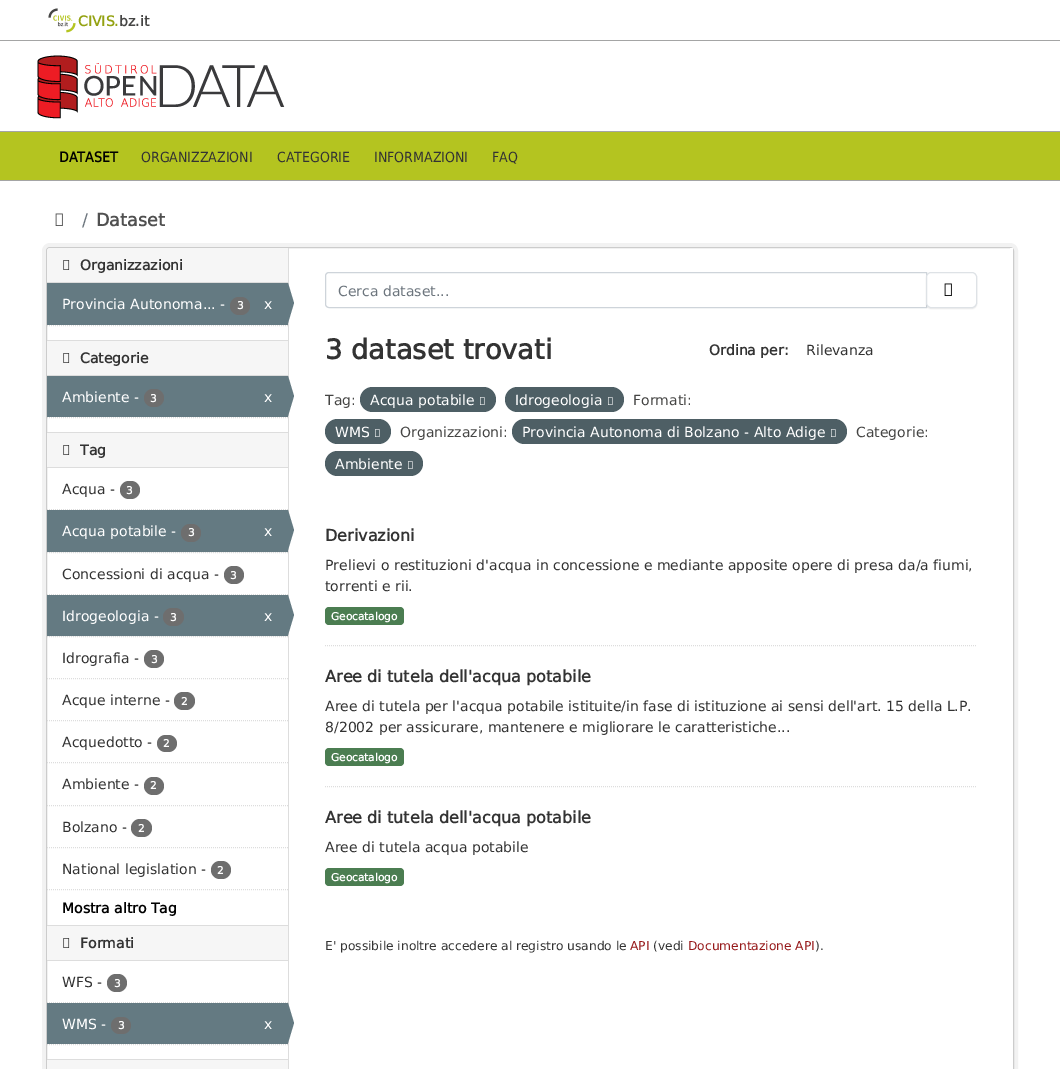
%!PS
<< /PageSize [1060 1069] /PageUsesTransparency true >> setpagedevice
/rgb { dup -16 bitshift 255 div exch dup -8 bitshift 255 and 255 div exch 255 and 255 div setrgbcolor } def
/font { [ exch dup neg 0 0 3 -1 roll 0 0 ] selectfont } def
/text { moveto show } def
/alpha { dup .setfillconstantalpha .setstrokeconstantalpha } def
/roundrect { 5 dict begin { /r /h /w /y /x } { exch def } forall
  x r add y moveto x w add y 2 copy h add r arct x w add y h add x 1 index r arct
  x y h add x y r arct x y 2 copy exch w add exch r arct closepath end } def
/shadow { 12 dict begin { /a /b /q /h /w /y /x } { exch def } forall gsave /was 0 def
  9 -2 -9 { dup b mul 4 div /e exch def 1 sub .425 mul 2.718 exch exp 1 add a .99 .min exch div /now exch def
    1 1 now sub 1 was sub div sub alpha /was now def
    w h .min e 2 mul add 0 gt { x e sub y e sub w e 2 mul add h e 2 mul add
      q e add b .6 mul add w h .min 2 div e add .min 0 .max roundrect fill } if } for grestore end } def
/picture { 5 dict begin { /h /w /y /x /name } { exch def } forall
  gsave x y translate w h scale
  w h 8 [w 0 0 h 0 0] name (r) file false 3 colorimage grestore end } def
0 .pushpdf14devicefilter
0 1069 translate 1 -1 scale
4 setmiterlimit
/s1 { /DejaVuSans-Bold 14 font 16#94A212 rgb } def
/s2 { /DejaVuSans-Bold 14 font 16#454544 rgb } def
/s3 { /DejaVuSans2-Bold 14 font 16#000000 rgb } def
/s4 { /DejaVuSans-Regular 14 font 16#333333 rgb } def
/s5 { /DejaVuSans2-Regular 17.5 font 16#6C757D rgb } def
/s6 { /DejaVuSans-Bold 17.5 font 16#505050 rgb } def
/s7 { /DejaVuSans-Bold 14 font 16#333333 rgb } def
/s8 { /DejaVuSans2-Regular 14 font 16#FFFFFF rgb } def
/s9 { /DejaVuSans-Bold 10.5 font 16#FFFFFF rgb } def
/s10 { /DejaVuSans2-Regular 14 font 16#333333 rgb } def
/s11 { /DejaVuSans-Bold 14 font 16#000000 rgb } def
/s12 { /DejaVuSans2-Regular 14 font 16#6C757D rgb } def
/s13 { /DejaVuSans-Bold 27.25 font 16#333333 rgb } def
/s14 { /DejaVuSans2-Regular 14 font 16#454544 rgb } def
/s15 { /DejaVuSans-Bold 16 font 16#333333 rgb } def
/s16 { /DejaVuSans2-Regular 12.25 font 16#333333 rgb } def
/s17 { /DejaVuSans2-Regular 12.25 font 16#96191A rgb } def
16#FFFFFF rgb
0 0 1060 1069 rectfill
16#A4A5A5 rgb
0 40 1060 1 rectfill
(pic1.raw) 48 8 28 25 picture
s1
(CIVIS.) 78 26 text
s2
(bz.it) 119 26 text
(pic2.raw) 37 55 248 64 picture
16#B4C420 rgb
0 132 1060 48 rectfill
16#A4A5A5 rgb
0 131 1060 1 rectfill
0 180 1060 1 rectfill
s3
(DATASET) 59 162 text
s4
(ORGANIZZAZIONI) 141 162 text
(CATEGORIE) 277 162 text
(INFORMAZIONI) 374 162 text
(FAQ) 492 162 text
(pic3.raw) 55 213 8 13 picture
s5
(/) 82 226 text
s6
(Dataset) 96 226 text
16#F2F2F2 rgb
4 setlinewidth
44 245 972 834 6 roundrect stroke
16#FFFFFF rgb
46.5 247.5 967 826 3.5 roundrect gsave fill grestore
16#CCCCCC rgb
1 setlinewidth
stroke
16#F6F6F6 rgb
50 248 moveto 288 248 lineto 288 283 lineto 47 283 lineto 47 251 lineto 47 249.5 48.5 248 50 248 curveto closepath fill
16#DDDDDD rgb
47 282 241 1 rectfill
(pic4.raw) 63 260 7 10 picture
s7
(Organizzazioni) 80 270 text
16#647A82 rgb
47 283 241 42 rectfill
s8
(Provincia Autonoma... -) 62 309 text
16#6E6E6E rgb
230 297 20 18 9 roundrect fill
s9
(3) 237 309 text
s8
(x) 264 309 text
16#DDDDDD rgb
288 248 1 821 rectfill
16#647A82 rgb
288 323 moveto 288 283 lineto 294 303 lineto closepath fill
16#DDDDDD rgb
[1 1] 0 setdash
47 325.5 moveto 288 325.5 lineto stroke
16#F6F6F6 rgb
47 341 241 34 rectfill
16#DDDDDD rgb
47 340 241 1 rectfill
47 375 241 1 rectfill
(pic4.raw) 63 353 7 10 picture
s7
(Categorie) 80 363 text
16#647A82 rgb
47 376 241 41 rectfill
s8
(Ambiente -) 62 402 text
16#6E6E6E rgb
144 389 20 18 9 roundrect fill
s9
(3) 150 402 text
s8
(x) 264 402 text
16#647A82 rgb
288 416 moveto 288 376 lineto 294 396 lineto closepath fill
16#DDDDDD rgb
47 417.5 moveto 288 417.5 lineto stroke
16#F6F6F6 rgb
47 433 241 34 rectfill
16#DDDDDD rgb
47 432 241 1 rectfill
47 467 241 1 rectfill
(pic4.raw) 63 445 7 10 picture
s7
(Tag) 80 455 text
16#DDDDDD rgb
47 509.5 moveto 288 509.5 lineto stroke
s10
(Acqua -) 62 494 text
16#6E6E6E rgb
120 481 20 18 9 roundrect fill
s9
(3) 126 494 text
16#F6F6F6 rgb
48 552 239 1 rectfill
16#DDDDDD rgb
47 552.5 moveto 288 552.5 lineto stroke
16#647A82 rgb
47 510 241 42 rectfill
s8
(Acqua potabile -) 62 536 text
16#6E6E6E rgb
181 524 20 18 9 roundrect fill
s9
(3) 188 536 text
s8
(x) 264 536 text
16#647A82 rgb
288 550 moveto 288 510 lineto 294 530 lineto closepath fill
16#DDDDDD rgb
47 594.5 moveto 288 594.5 lineto stroke
s10
(Concessioni di acqua -) 62 579 text
16#6E6E6E rgb
224 566 20 18 9 roundrect fill
s9
(3) 230 579 text
16#F6F6F6 rgb
48 636 239 1 rectfill
16#DDDDDD rgb
47 636.5 moveto 288 636.5 lineto stroke
16#647A82 rgb
47 595 241 41 rectfill
s8
(Idrogeologia -) 62 621 text
16#6E6E6E rgb
163 608 21 18 9 roundrect fill
s9
(3) 170 621 text
s8
(x) 264 621 text
16#647A82 rgb
288 635 moveto 288 595 lineto 294 615 lineto closepath fill
16#DDDDDD rgb
47 678.5 moveto 288 678.5 lineto stroke
s10
(Idrografia -) 62 663 text
16#6E6E6E rgb
144 650 20 18 9 roundrect fill
s9
(3) 151 663 text
16#DDDDDD rgb
47 720.5 moveto 288 720.5 lineto stroke
s10
(Acque interne -) 62 705 text
16#6E6E6E rgb
174 692 21 18 9 roundrect fill
s9
(2) 181 705 text
16#DDDDDD rgb
47 762.5 moveto 288 762.5 lineto stroke
s10
(Acquedotto -) 62 747 text
16#6E6E6E rgb
157 735 20 17 8.5 roundrect fill
s9
(2) 163 747 text
16#DDDDDD rgb
47 805.5 moveto 288 805.5 lineto stroke
s10
(Ambiente -) 62 789 text
16#6E6E6E rgb
144 777 20 18 9 roundrect fill
s9
(2) 150 789 text
16#DDDDDD rgb
47 847.5 moveto 288 847.5 lineto stroke
s10
(Bolzano -) 62 832 text
16#6E6E6E rgb
131 819 21 18 9 roundrect fill
s9
(2) 138 832 text
s10
(National legislation -) 62 874 text
16#6E6E6E rgb
211 861 20 18 9 roundrect fill
s9
(2) 217 874 text
16#DDDDDD rgb
47 889.5 moveto 288 889.5 lineto stroke
s11
(Mostra altro Tag) 62 913 text
16#F6F6F6 rgb
47 926 241 34 rectfill
16#DDDDDD rgb
47 925 241 1 rectfill
47 960 241 1 rectfill
(pic4.raw) 63 938 7 10 picture
s7
(Formati) 80 948 text
16#DDDDDD rgb
47 1002.5 moveto 288 1002.5 lineto stroke
s10
(WFS -) 62 987 text
16#6E6E6E rgb
107 974 20 18 9 roundrect fill
s9
(3) 114 987 text
16#647A82 rgb
47 1003 241 41 rectfill
s8
(WMS -) 62 1029 text
16#6E6E6E rgb
111 1017 20 17 8.5 roundrect fill
s9
(3) 118 1029 text
s8
(x) 264 1029 text
16#647A82 rgb
288 1043 moveto 288 1003 lineto 294 1023 lineto closepath fill
16#DDDDDD rgb
47 1044.5 moveto 288 1044.5 lineto stroke
16#F6F6F6 rgb
47 1060 241 9 rectfill
16#DDDDDD rgb
47 1059 241 1 rectfill
16#FFFFFF rgb
1010 248 3 3 rectfill
16#CED4DA rgb
[] 0 setdash
329 272.5 moveto 926.5 272.5 lineto 926.5 307.5 lineto 329 307.5 lineto 327 307.5 325.5 306 325.5 304 curveto 325.5 276 lineto 325.5 274 327 272.5 329 272.5 curveto closepath stroke
s12
(Cerca dataset...) 338 296 text
16#000000 rgb
926 273 51 36 5 0.5 0.07 shadow
16#FFFFFF rgb
926.5 272.5 50 35 4.5 roundrect gsave fill grestore
16#DEE2E6 rgb
stroke
(pic5.raw) 944 283 8 13 picture
s13
(3 dataset trovati) 325 359 text
s7
(Ordina per:) 709 355 text
s10
(Rilevanza) 806 355 text
s14
(Tag:) 325 405 text
16#4E5F65 rgb
360 387 136 25 12.5 roundrect fill
s8
(Acqua potabile) 370 405 text
(pic6.raw) 480 397 5 8 picture
16#4E5F65 rgb
505 387 119 25 12.5 roundrect fill
s8
(Idrogeologia) 515 405 text
(pic6.raw) 608 397 5 8 picture
s14
(Formati:) 633 405 text
16#4E5F65 rgb
325 419 66 25 12.5 roundrect fill
s8
(WMS) 335 437 text
(pic6.raw) 375 429 5 8 picture
s14
(Organizzazioni:) 400 437 text
16#4E5F65 rgb
512 419 335 25 12.5 roundrect fill
s8
(Provincia Autonoma di Bolzano - Alto Adige) 522 437 text
(pic6.raw) 831 429 5 8 picture
s14
(Categorie:) 856 437 text
16#4E5F65 rgb
325 451 98 25 12.5 roundrect fill
s8
(Ambiente) 335 469 text
(pic6.raw) 408 461 5 8 picture
16#DDDDDD rgb
[1 1] 0 setdash
325 645.5 moveto 977 645.5 lineto stroke
s15
(Derivazioni) 325 541 text
s10
(Prelievi o restituzioni d'acqua in concessione e mediante apposite opere di presa da/a fiumi,) 325 570 text
(torrenti e rii.) 325 591 text
16#4B7D51 rgb
325 607 79 18 4 roundrect fill
s9
(Geocatalogo) 331 620 text
16#DDDDDD rgb
325 786.5 moveto 977 786.5 lineto stroke
s15
(Aree di tutela dell'acqua potabile) 325 682 text
s10
(Aree di tutela per l'acqua potabile istituite/in fase di istituzione ai sensi dell'art. 15 della L.P.) 325 711 text
(8/2002 per assicurare, mantenere e migliorare le caratteristiche...) 325 732 text
16#4B7D51 rgb
325 748 79 18 4 roundrect fill
s9
(Geocatalogo) 331 761 text
s15
(Aree di tutela dell'acqua potabile) 325 823 text
s10
(Aree di tutela acqua potabile) 325 852 text
16#4B7D51 rgb
325 868 79 18 4 roundrect fill
s9
(Geocatalogo) 331 881 text
s16
(E' possibile inoltre accedere al registro usando le) 325 950 text
s17
(API) 630 950 text
s16
(\(vedi) 653 950 text
s17
(Documentazione API) 688 950 text
s16
(\).) 815 950 text
.poppdf14devicefilter showpage
